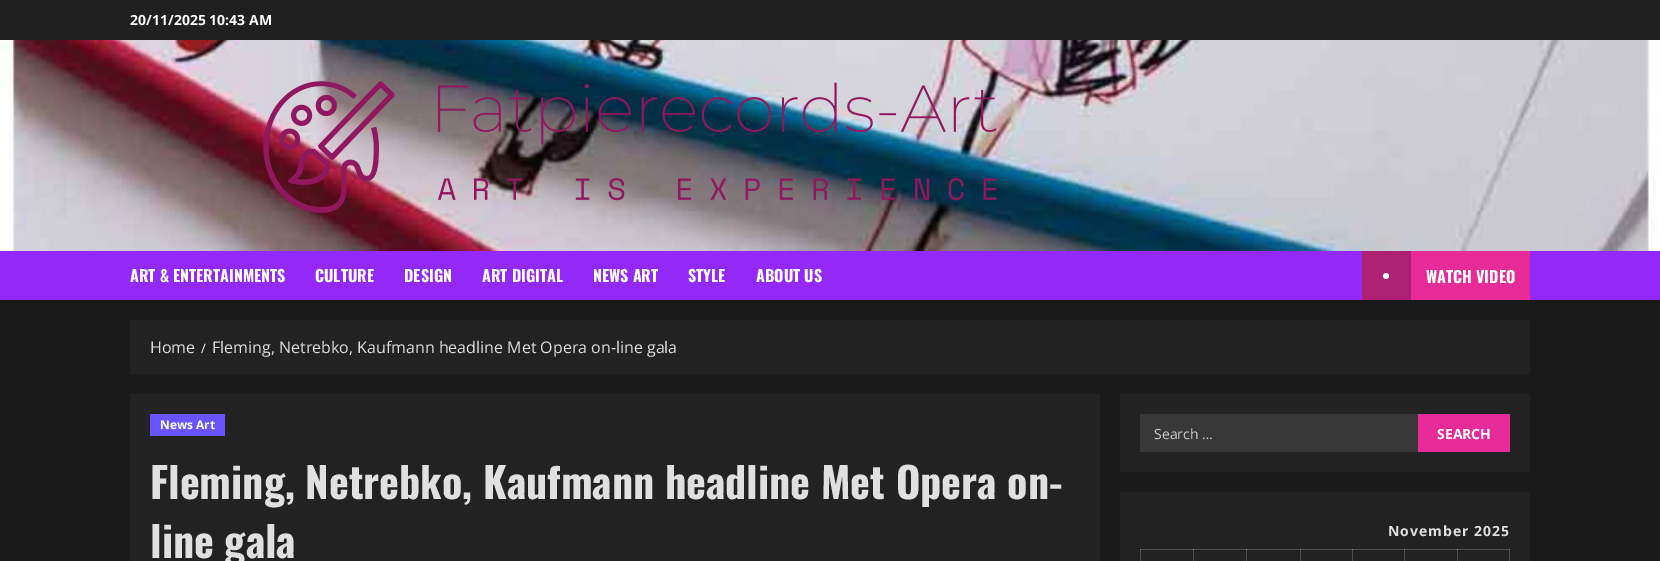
%!PS
<< /PageSize [1660 561] >> setpagedevice
/rgb { dup -16 bitshift 255 div exch dup -8 bitshift 255 and 255 div exch 255 and 255 div setrgbcolor } def
/font { [ exch dup neg 0 0 3 -1 roll 0 0 ] selectfont } def
/text { moveto show } def
/circle { newpath 0 360 arc closepath } def
/picture { 5 dict begin { /h /w /y /x /name } { exch def } forall
  gsave x y translate w h scale
  w h 8 [w 0 0 h 0 0] name (r) file false 3 colorimage grestore end } def
0 561 translate 1 -1 scale
4 setmiterlimit
/s1 { /OpenSans-Bold 14 font 16#FFFFFF rgb } def
/s2 { /Oswald-Bold 16 font 16#FFFFFF rgb } def
/s3 { /OpenSans-Regular 16 font 16#E0E0E0 rgb } def
/s4 { /OpenSans-Regular 13 font 16#FFFFFF rgb } def
/s5 { /OpenSans-Bold 12 font 16#FFFFFF rgb } def
/s6 { /Oswald-Bold 42 font 16#E0E0E0 rgb } def
/s7 { /OpenSans-Regular 14 font 16#CDCDCD rgb } def
16#1A1A1A rgb
0 0 1660 561 rectfill
16#202020 rgb
0 0 1660 40 rectfill
s1
(20/11/2025 10:43 AM) 130 25 text
(pic1.raw) 0 40 1660 211 picture
(pic2.raw) 263 81 734 132 picture
16#9229F7 rgb
0 251 1660 49 rectfill
s2
(ART & ENTERTAINMENTS) 130 282 text
(CULTURE) 315 282 text
(DESIGN) 404 282 text
(ART DIGITAL) 482 282 text
(NEWS ART) 593 282 text
(STYLE) 688 282 text
(ABOUT US) 756 282 text
16#E72B99 rgb
1411 251 119 49 rectfill
16#AD2073 rgb
1362 251 49 49 rectfill
16#FFFFFF rgb
1386 276 3 circle fill
(WATCH VIDEO) 1426 283 text
16#222222 rgb
130 320 1400 54 rectfill
s3
(Home) 150 353 text
s4
(/) 201 353 text
s3
(Fleming, Netrebko, Kaufmann headline Met Opera on-line gala) 212 353 text
16#222222 rgb
130 394 970 167 rectfill
16#6953FF rgb
150 414 75 22 rectfill
s5
(News Art) 160 429 text
s6
(Fleming, Netrebko, Kaufmann headline Met Opera on-) 150 499 text
(line gala) 150 558 text
16#222222 rgb
1120 394 410 78 rectfill
16#383838 rgb
1140 414 278 38 rectfill
s7
(Search …) 1154 439 text
16#E72B99 rgb
1418 414 92 38 rectfill
s1
(SEARCH) 1437 439 text
16#222222 rgb
1120 492 410 69 rectfill
16#4E4E4E rgb
1140 549 1 12 rectfill
1140 549 54 1 rectfill
16#717171 rgb
1140 549 1 1 rectfill
16#4E4E4E rgb
1193 549 1 12 rectfill
1193 549 54 1 rectfill
16#8D8D8D rgb
1193 549 1 1 rectfill
16#4E4E4E rgb
1246 549 1 12 rectfill
1246 549 55 1 rectfill
16#8D8D8D rgb
1246 549 1 1 rectfill
16#4E4E4E rgb
1300 549 1 12 rectfill
1300 549 53 1 rectfill
16#8D8D8D rgb
1300 549 1 1 rectfill
16#4E4E4E rgb
1352 549 1 12 rectfill
1352 549 53 1 rectfill
16#8D8D8D rgb
1352 549 1 1 rectfill
16#4E4E4E rgb
1404 549 1 12 rectfill
1404 549 54 1 rectfill
16#8D8D8D rgb
1404 549 1 1 rectfill
16#4E4E4E rgb
1457 549 1 12 rectfill
1509 549 1 12 rectfill
16#E0E0E0 rgb
1388 536 moveto 1 0 (November 2025) ashow
16#4E4E4E rgb
1457 549 53 1 rectfill
16#8D8D8D rgb
1457 549 1 1 rectfill
16#717171 rgb
1509 549 1 1 rectfill
showpage
